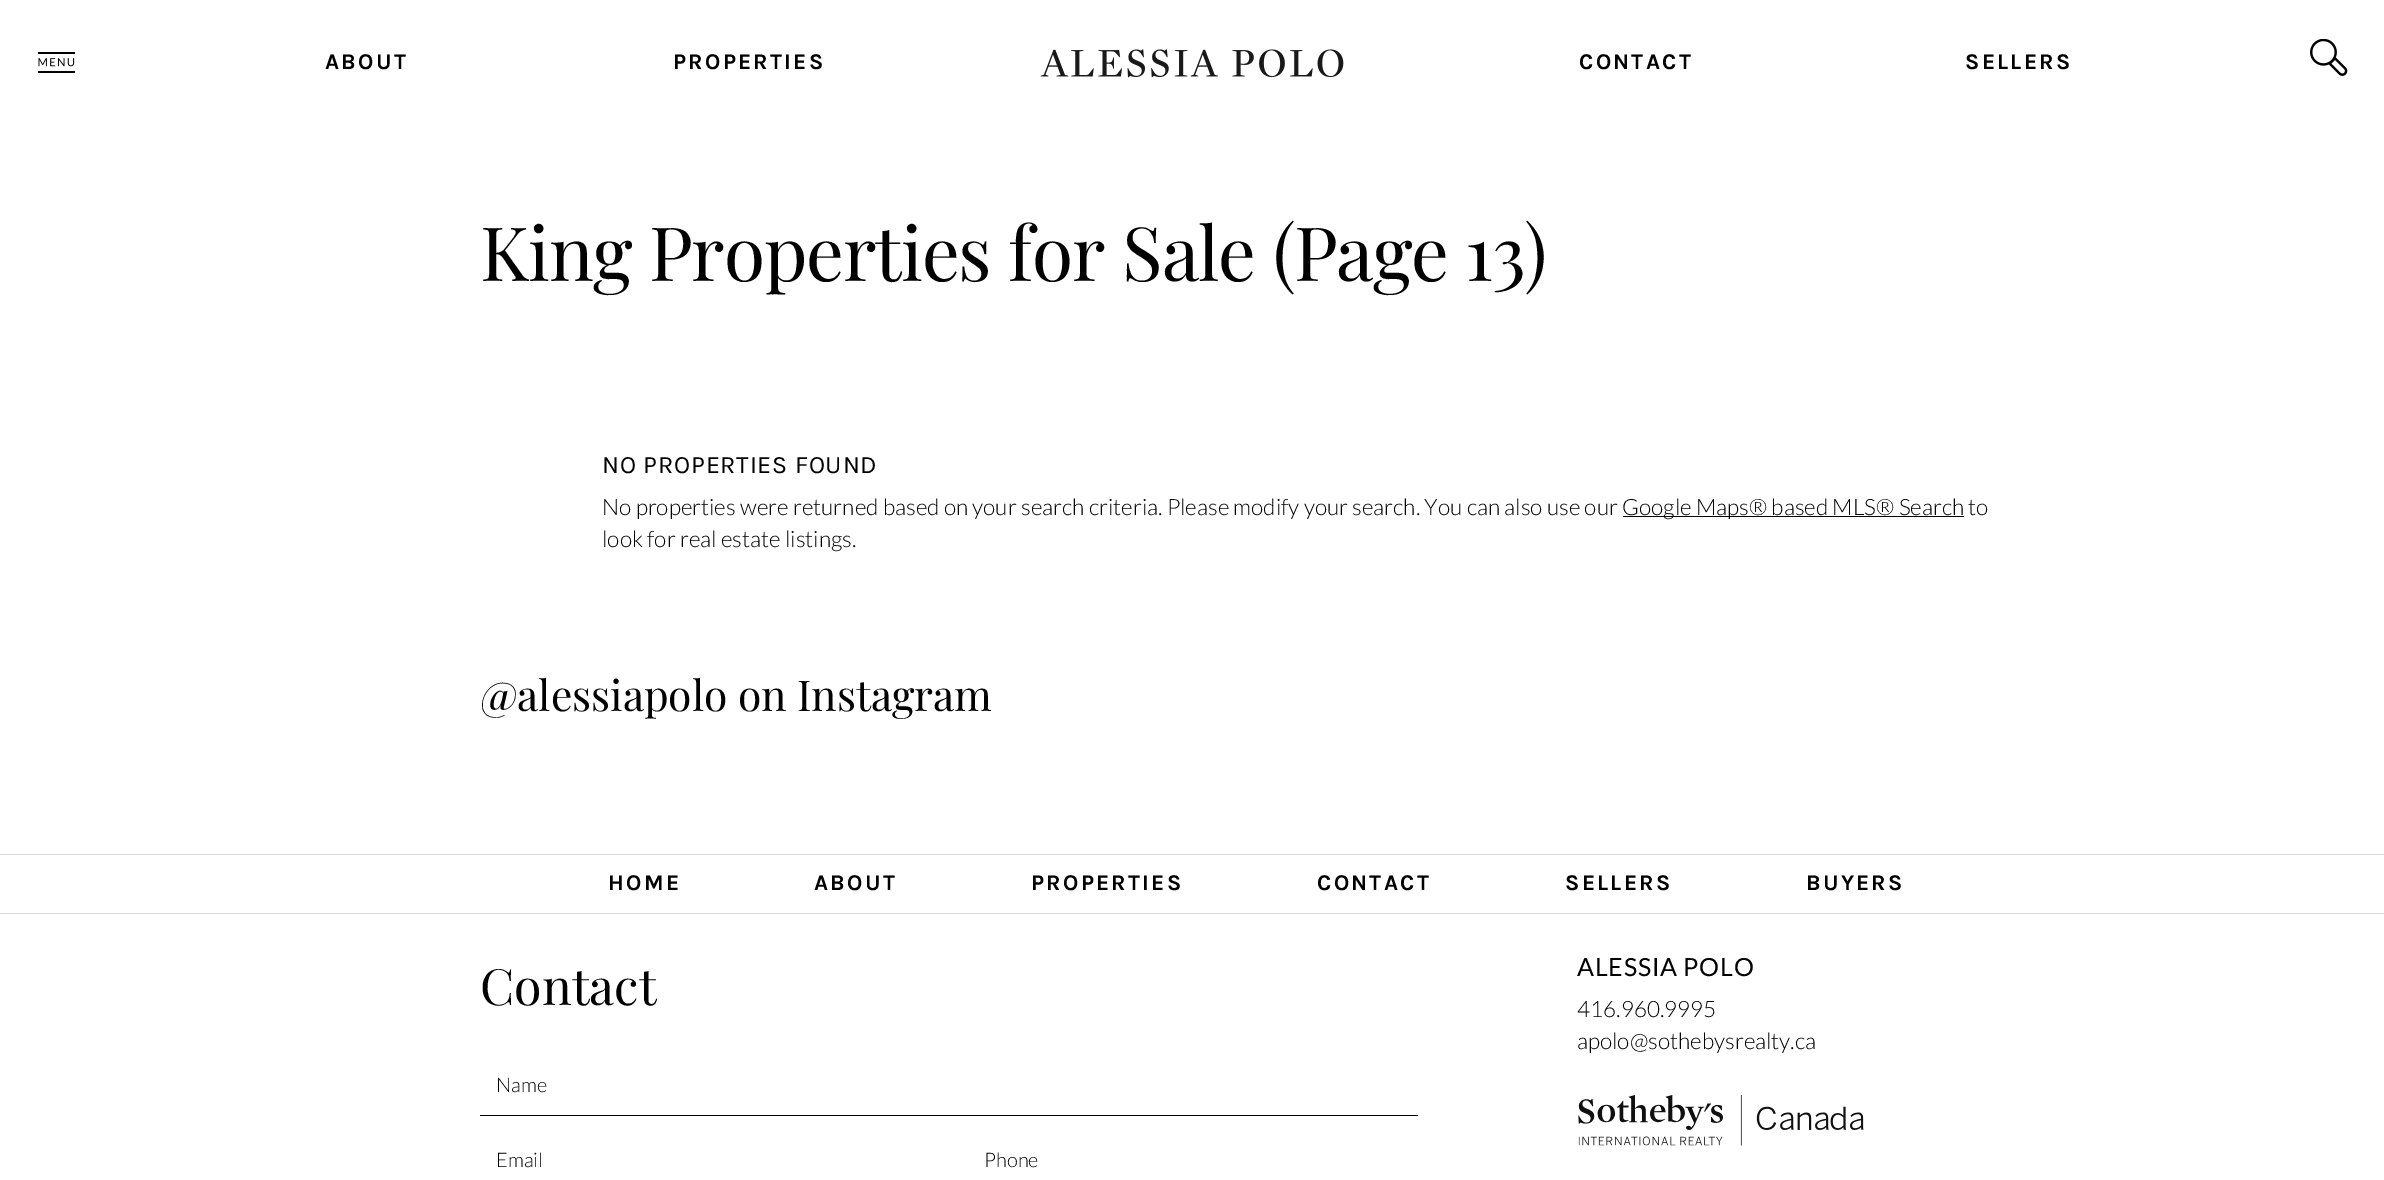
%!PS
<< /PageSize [2384 1180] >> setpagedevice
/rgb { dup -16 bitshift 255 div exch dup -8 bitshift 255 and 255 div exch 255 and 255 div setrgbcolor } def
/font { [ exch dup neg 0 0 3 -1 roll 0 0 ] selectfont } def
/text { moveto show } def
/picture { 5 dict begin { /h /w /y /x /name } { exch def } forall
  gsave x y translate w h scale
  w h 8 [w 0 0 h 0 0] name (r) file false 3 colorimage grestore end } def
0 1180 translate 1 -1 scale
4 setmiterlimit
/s1 { /Lato-Light 22.5 font 16#000000 rgb } def
/s2 { /PlayfairDisplay-Regular 42.5 font 16#000000 rgb } def
/s3 { /PlayfairDisplay-Regular 50 font 16#000000 rgb } def
/s4 { /Lato-Light 20 font 16#000000 rgb } def
16#FFFFFF rgb
0 0 2384 1180 rectfill
(pic1.raw) 38 52 37 21 picture
/Karla-Bold 22.5 font
16#000000 rgb
325 69 moveto 2.25 0 (ABOUT) ashow
673 69 moveto 2.25 0 (PROPERTIES) ashow
(pic2.raw) 1040 49 304 29 picture
1579 69 moveto 2.25 0 (CONTACT) ashow
1965 69 moveto 2.25 0 (SELLERS) ashow
(pic3.raw) 2310 39 38 37 picture
/PlayfairDisplay-Regular 75 font
480 281 moveto -1.1 0 (King Properties for Sale \(Page 13\)) ashow
/Karla-Regular 25 font
602 473 moveto 0.75 0 (NO PROPERTIES FOUND) ashow
s1
(No properties were returned based on your search criteria. Please modify your search. You can also use our) 602 515 text
1623 516 341 1 rectfill
(Google Maps® based MLS® Search to) 1622 515 text
(look for real estate listings.) 602 547 text
s2
(@alessiapolo on Instagram) 480 711 text
16#D8D8D8 rgb
0 854 2384 1 rectfill
/Karla-Bold 22.5 font
16#000000 rgb
608 890 moveto 2.25 0 (HOME) ashow
814 890 moveto 2.25 0 (ABOUT) ashow
1031 890 moveto 2.25 0 (PROPERTIES) ashow
1317 890 moveto 2.25 0 (CONTACT) ashow
1565 890 moveto 2.25 0 (SELLERS) ashow
1806 890 moveto 2.25 0 (BUYERS) ashow
16#D8D8D8 rgb
0 913 2384 1 rectfill
s3
(Contact) 480 1005 text
480 1115 938 1 rectfill
s4
(Name) 496 1092 text
(Email) 496 1167 text
(Phone) 984 1167 text
/Lato-Regular 25 font
1577 976 moveto 0.75 0 (ALESSIA POLO) ashow
s1
(416.960.9995) 1577 1017 text
(apolo@sothebysrealty.ca) 1577 1049 text
(pic4.raw) 1578 1095 286 51 picture
showpage
